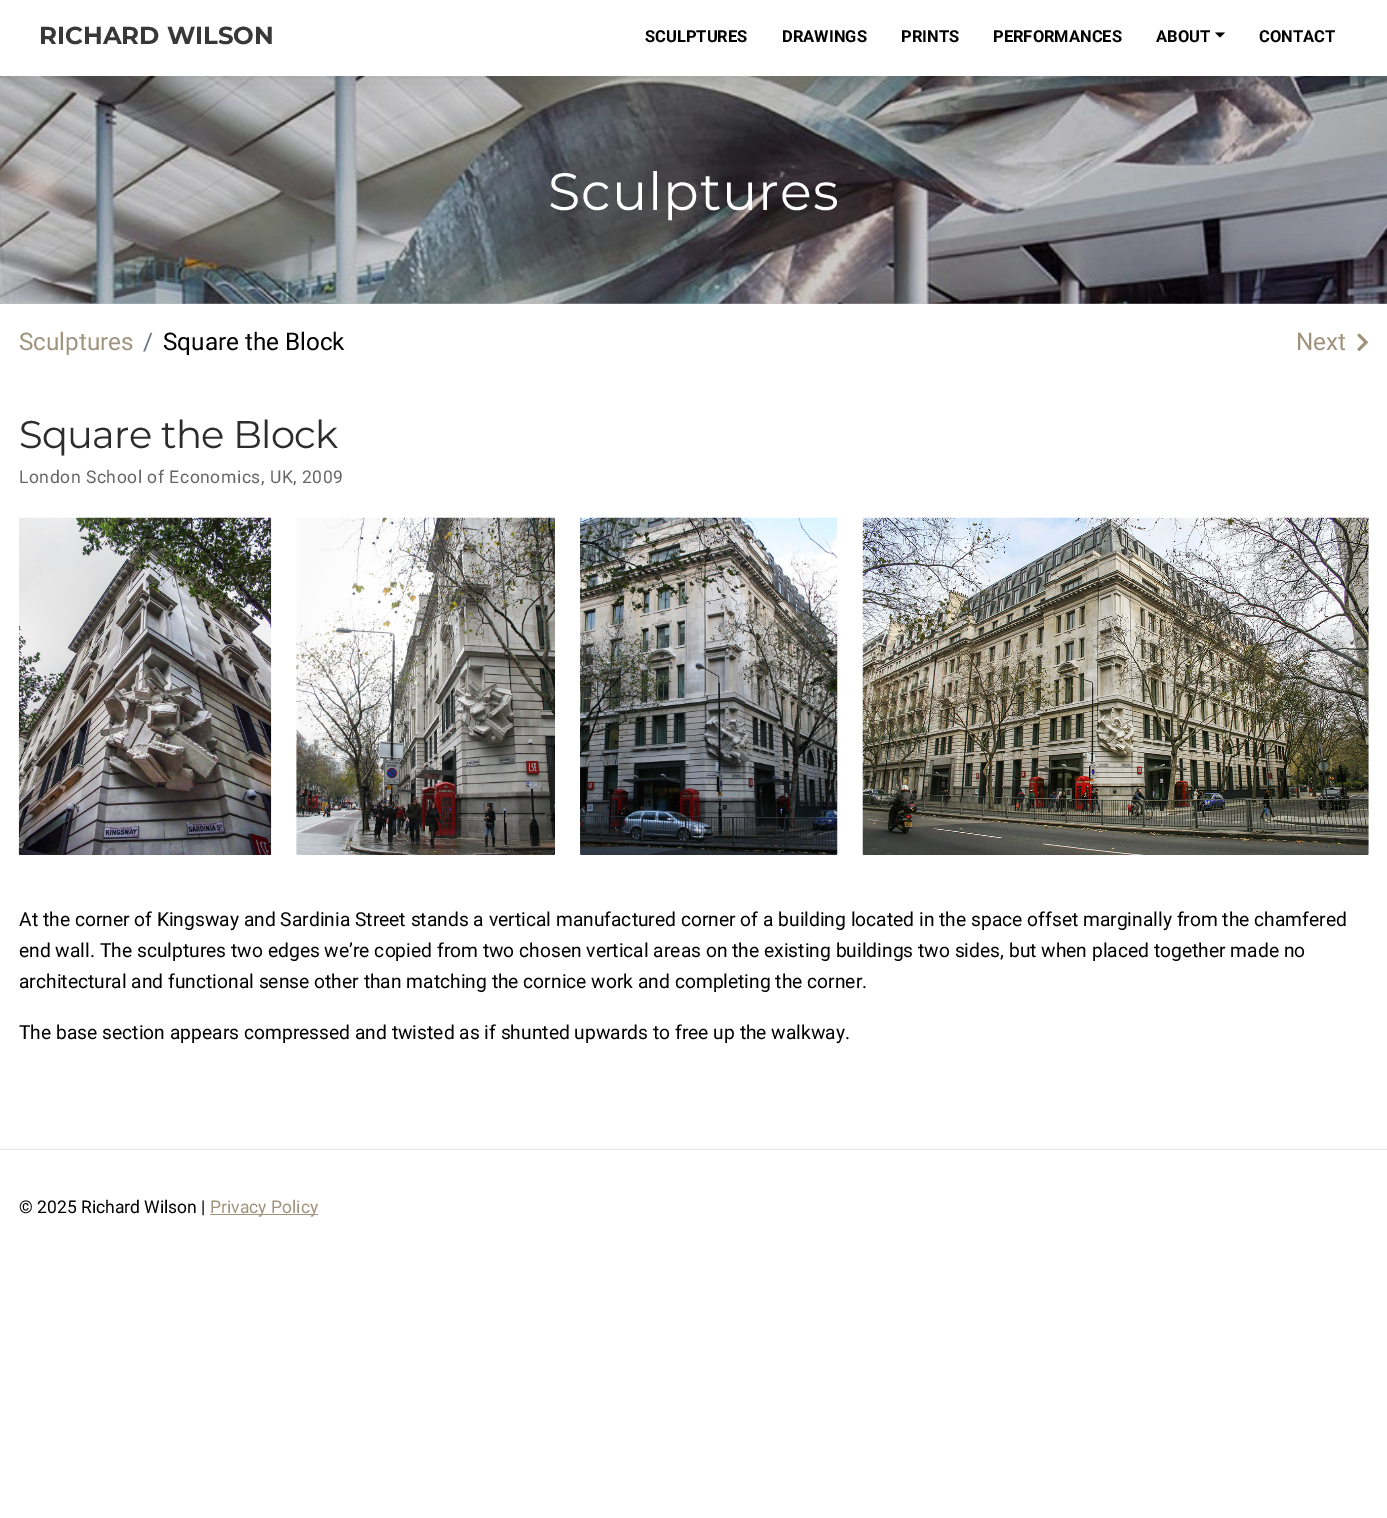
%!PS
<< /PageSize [1387 1518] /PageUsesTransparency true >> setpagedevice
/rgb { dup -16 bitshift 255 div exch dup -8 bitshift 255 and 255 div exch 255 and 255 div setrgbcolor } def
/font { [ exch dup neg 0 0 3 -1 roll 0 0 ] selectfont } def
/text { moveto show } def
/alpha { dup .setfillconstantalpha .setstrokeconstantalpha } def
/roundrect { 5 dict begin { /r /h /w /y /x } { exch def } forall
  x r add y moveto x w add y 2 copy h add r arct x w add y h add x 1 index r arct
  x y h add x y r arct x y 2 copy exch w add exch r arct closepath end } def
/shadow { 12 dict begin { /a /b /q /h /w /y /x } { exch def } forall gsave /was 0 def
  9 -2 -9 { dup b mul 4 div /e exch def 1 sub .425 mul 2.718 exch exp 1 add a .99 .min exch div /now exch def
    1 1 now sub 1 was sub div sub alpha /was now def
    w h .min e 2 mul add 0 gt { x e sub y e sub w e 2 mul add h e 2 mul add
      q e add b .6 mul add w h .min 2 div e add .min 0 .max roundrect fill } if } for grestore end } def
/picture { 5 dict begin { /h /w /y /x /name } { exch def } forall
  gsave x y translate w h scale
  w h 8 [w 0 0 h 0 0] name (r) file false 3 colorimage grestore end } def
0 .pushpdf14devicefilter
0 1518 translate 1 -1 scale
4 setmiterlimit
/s1 { /Montserrat-Bold 24.5 font 16#383838 rgb } def
/s2 { /Roboto-Bold 16.5 font 16#000000 rgb } def
/s3 { /Roboto-Regular 24.25 font 16#A0937D rgb } def
/s4 { /Roboto-Regular 24.25 font 16#6C757D rgb } def
/s5 { /Roboto-Regular 24.25 font 16#000000 rgb } def
/s6 { /Roboto-Regular 19.25 font 16#000000 rgb } def
/s7 { /Roboto-Regular 17.5 font 16#000000 rgb } def
/s8 { /Roboto-Regular 17.5 font 16#A0937D rgb } def
16#FFFFFF rgb
0 0 1387 1518 rectfill
(pic1.raw) 0 76 1387 228 picture
16#000000 rgb
0 0 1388 76 0 12.5 0.15 shadow
16#FFFFFF rgb
0 0 1387 76 rectfill
s1
(RICHARD WILSON) 39 44 text
s2
(SCULPTURES) 645 42 text
(DRAWINGS) 782 42 text
(PRINTS) 901 42 text
(PERFORMANCES) 993 42 text
(ABOUT) 1156 42 text
1215 32.5 moveto 1225 32.5 lineto 1220 37.5 lineto closepath fill
(CONTACT) 1259 42 text
/Montserrat-Regular 52.5 font
16#FFFFFF rgb
548 210 moveto 1 0 (Sculptures) ashow
s3
(Sculptures) 19 350 text
s4
(/) 143 350 text
s5
(Square the Block) 163 350 text
s3
(Next) 1296 350 text
(pic2.raw) 1357 333 11 18 picture
/Montserrat-Regular 38.5 font
16#2C2C2C rgb
19 448 moveto -0.75 0 (Square the Block) ashow
/Roboto-Regular 17.5 font
16#666666 rgb
19 483 moveto 0.55 0 (London School of Economics, UK, 2009) ashow
(pic3.raw) 18 517 254 338 picture
(pic4.raw) 296 517 259 338 picture
(pic5.raw) 580 517 258 338 picture
(pic6.raw) 862 517 507 338 picture
s6
(At the corner of Kingsway and Sardinia Street stands a vertical manufactured corner of a building located in the space offset marginally from the chamfered) 19 926 text
(end wall. The sculptures two edges we’re copied from two chosen vertical areas on the existing buildings two sides, but when placed together made no) 19 957 text
(architectural and functional sense other than matching the cornice work and completing the corner.) 19 988 text
(The base section appears compressed and twisted as if shunted upwards to free up the walkway.) 19 1039 text
16#E6E6E6 rgb
0 1149 1387 1 rectfill
s7
(© 2025 Richard Wilson |) 19 1213 text
16#A0937D rgb
210 1214 108 1 rectfill
(Privacy Policy) 210 1213 text
.poppdf14devicefilter showpage
